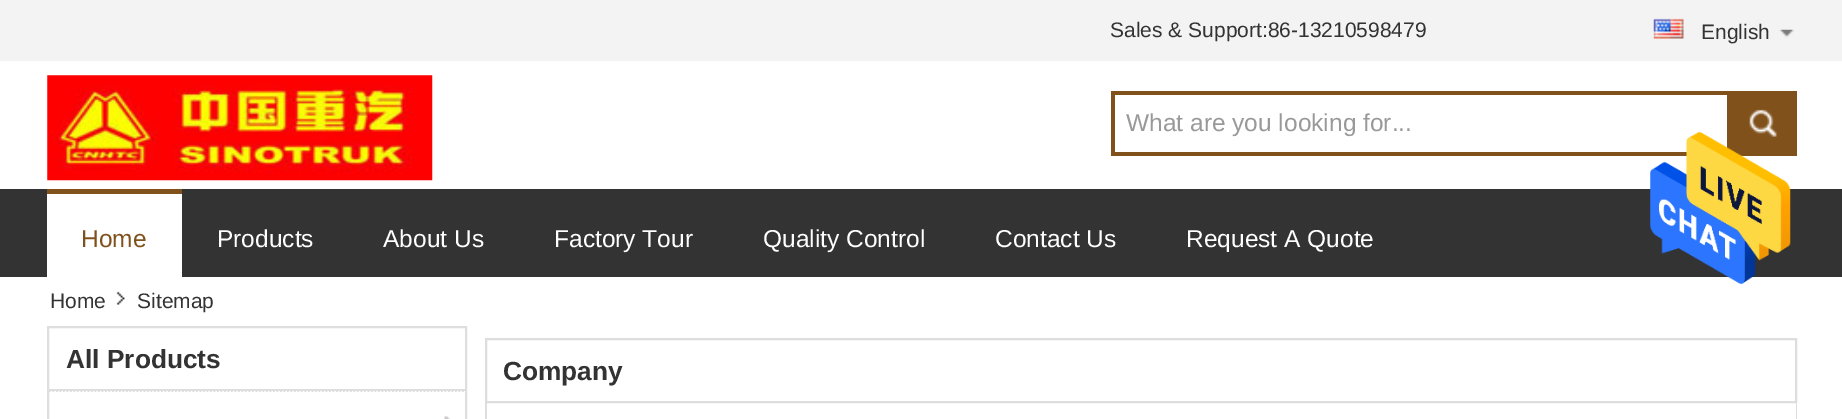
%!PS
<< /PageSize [1842 419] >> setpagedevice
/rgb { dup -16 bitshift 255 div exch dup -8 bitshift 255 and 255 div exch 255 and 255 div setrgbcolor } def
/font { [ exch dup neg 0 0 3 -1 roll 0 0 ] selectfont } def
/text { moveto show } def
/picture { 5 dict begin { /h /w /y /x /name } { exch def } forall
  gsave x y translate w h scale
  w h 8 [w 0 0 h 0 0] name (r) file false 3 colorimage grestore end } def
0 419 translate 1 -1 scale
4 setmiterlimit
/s1 { /LiberationSans-Regular 21 font 16#333333 rgb } def
/s2 { /LiberationSans-Regular 24.5 font 16#999999 rgb } def
/s3 { /LiberationSans-Regular 24.5 font 16#81511C rgb } def
/s4 { /LiberationSans-Regular 24.5 font 16#FFFFFF rgb } def
/s5 { /LiberationSans-Bold 26.25 font 16#333333 rgb } def
16#FFFFFF rgb
0 0 1842 419 rectfill
16#F3F3F3 rgb
0 0 1842 61 rectfill
(pic1.raw) 47 75 386 106 picture
s1
(Sales & Support:86-13210598479) 1110 37 text
(pic2.raw) 1653 18 31 21 picture
(English) 1701 39 text
(pic3.raw) 1779 29 16 9 picture
16#81511C rgb
1111 91 616 4 rectfill
1111 152 576 4 rectfill
1111 91 4 65 rectfill
s2
(What are you looking for...) 1126 131 text
16#81511C rgb
1727 91 70 65 rectfill
(pic4.raw) 1749 109 28 28 picture
16#333333 rgb
0 189 1842 88 rectfill
16#FFFFFF rgb
47 194 135 83 rectfill
16#81511C rgb
47 189 135 5 rectfill
(Home) 81 247 text
s4
(Products) 217 247 text
(About Us) 383 247 text
(Factory Tour) 554 247 text
(Quality Control) 763 247 text
(Contact Us) 995 247 text
(Request A Quote) 1186 247 text
(pic5.raw) 1650 132 141 153 picture
(pic6.raw) 116 291 9 14 picture
s1
(Home) 50 308 text
(Sitemap) 137 308 text
16#DEDEDE rgb
2 setlinewidth
48 327 418 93 rectstroke
1.8 setlinewidth
[1.75 1.75] 0 setdash
49 391 moveto 465.5 391 lineto stroke
49 389 417 2 rectfill
s5
(All Products) 66 368 text
(pic7.raw) 444 416 6 3 picture
16#DDDDDD rgb
2 setlinewidth
[] 0 setdash
486 339 1310 63 rectstroke
s5
(Company) 503 380 text
16#DDDDDD rgb
1796 403 1 16 rectfill
485 403 2 16 rectfill
showpage
